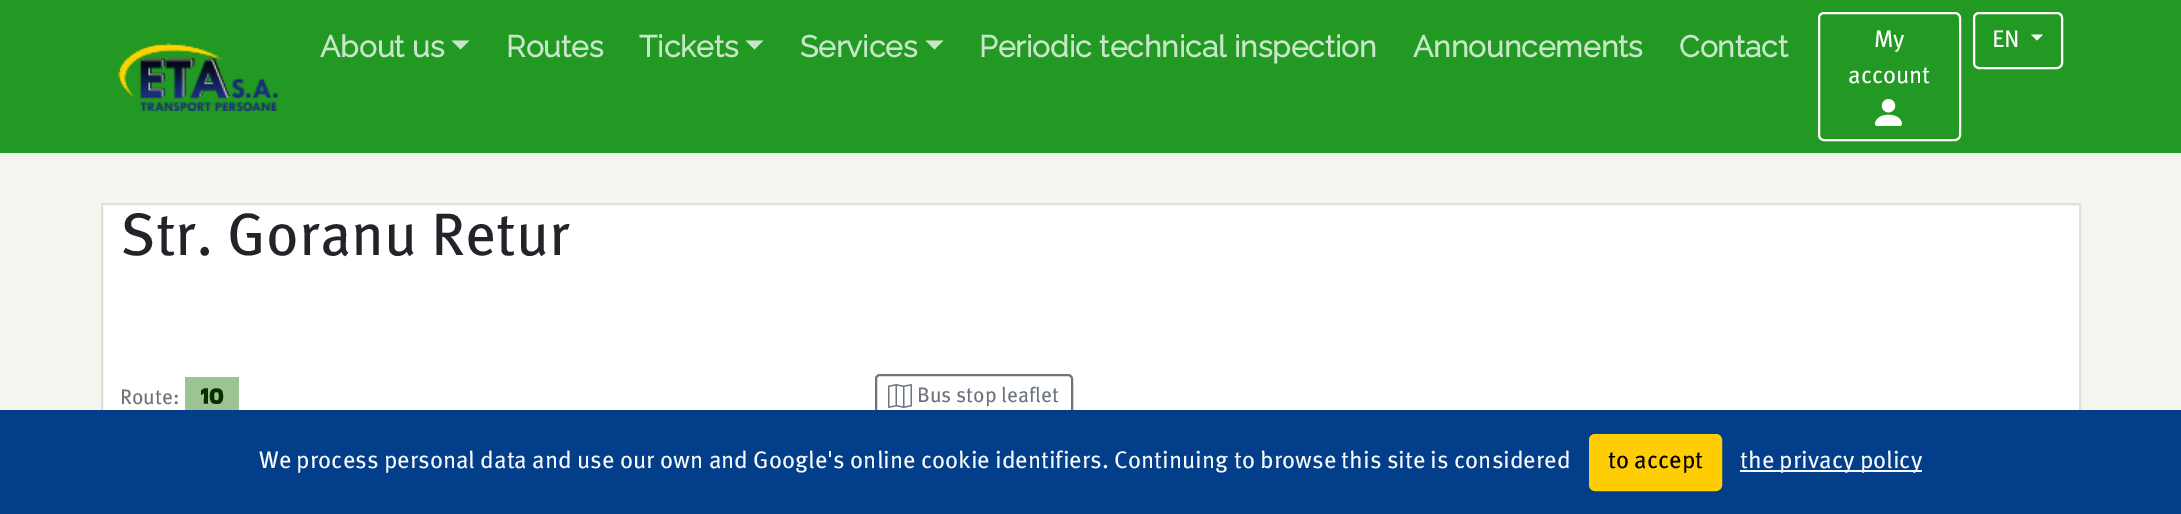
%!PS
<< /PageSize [2181 514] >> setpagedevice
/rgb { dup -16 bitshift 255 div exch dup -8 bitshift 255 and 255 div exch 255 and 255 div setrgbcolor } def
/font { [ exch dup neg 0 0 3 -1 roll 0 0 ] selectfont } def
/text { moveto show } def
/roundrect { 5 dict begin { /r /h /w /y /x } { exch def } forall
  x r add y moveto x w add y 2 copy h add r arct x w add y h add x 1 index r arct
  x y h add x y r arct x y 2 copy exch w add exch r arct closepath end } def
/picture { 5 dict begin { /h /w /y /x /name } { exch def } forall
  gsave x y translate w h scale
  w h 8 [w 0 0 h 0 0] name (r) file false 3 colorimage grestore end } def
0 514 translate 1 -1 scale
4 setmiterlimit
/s1 { /Raleway-Bold 30 font 16#C8E6C8 rgb } def
/s2 { /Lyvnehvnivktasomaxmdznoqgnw-Regular 24 font 16#FFFFFF rgb } def
/s3 { /Lyvnehvnivktasomaxmdznoqgnw-Regular 60 font 16#212529 rgb } def
/s4 { /Lyvnehvnivktasomaxmdznoqgnw-Regular 21 font 16#6C757D rgb } def
/s5 { /BakbakOne-Bold 24 font 16#082E00 rgb } def
/s6 { /Lyvnehvnivktasomaxmdznoqgnw-Regular 24 font 16#F8F9FA rgb } def
/s7 { /Lyvnehvnivktasomaxmdznoqgnw-Regular 24 font 16#000000 rgb } def
16#F3F6EE rgb
0 0 2181 514 rectfill
16#229922 rgb
0 0 2181 153 rectfill
(pic1.raw) 118 43 160 68 picture
s1
(About us) 320 57 text
451.5 40.5 moveto 469.5 40.5 lineto 460.5 49.5 lineto closepath fill
(Routes) 506 57 text
(Tickets) 639 57 text
745.5 40.5 moveto 763.5 40.5 lineto 754.5 49.5 lineto closepath fill
(Services) 800 57 text
925.5 40.5 moveto 943.5 40.5 lineto 934.5 49.5 lineto closepath fill
(Periodic technical inspection) 979 57 text
(Announcements) 1413 57 text
(Contact) 1679 57 text
16#FFFFFF rgb
2 setlinewidth
1819 13 141 127 5 roundrect stroke
s2
(My) 1874 47 text
(account) 1848 83 text
(pic2.raw) 1875 99 27 27 picture
1974 13 88 55 5 roundrect stroke
(EN) 1992 47 text
2031 34.5 moveto 2043 34.5 lineto 2037 40.5 lineto closepath fill
103 205 1976 205 rectfill
16#DFDFDF rgb
102 204 1978 238 rectstroke
s3
(Str. Goranu Retur) 120 255 text
s4
(Route:) 120 404 text
16#9DC395 rgb
185 377 54 33 rectfill
s5
(10) 200 404 text
16#6C757D rgb
876 375 196 44 4 roundrect stroke
(pic3.raw) 888 384 24 24 picture
s4
(Bus stop leaflet) 917 402 text
16#023E8A rgb
0 410 2181 104 rectfill
s6
(We process personal data and use our own and Google's online cookie identifiers. Continuing to browse this site is considered) 259 468 text
16#FECD04 rgb
1590 435 131 55 5 roundrect gsave fill grestore
stroke
s7
(to accept) 1608 468 text
16#F8F9FA rgb
1740 470 182 2 rectfill
(the privacy policy) 1740 468 text
showpage
